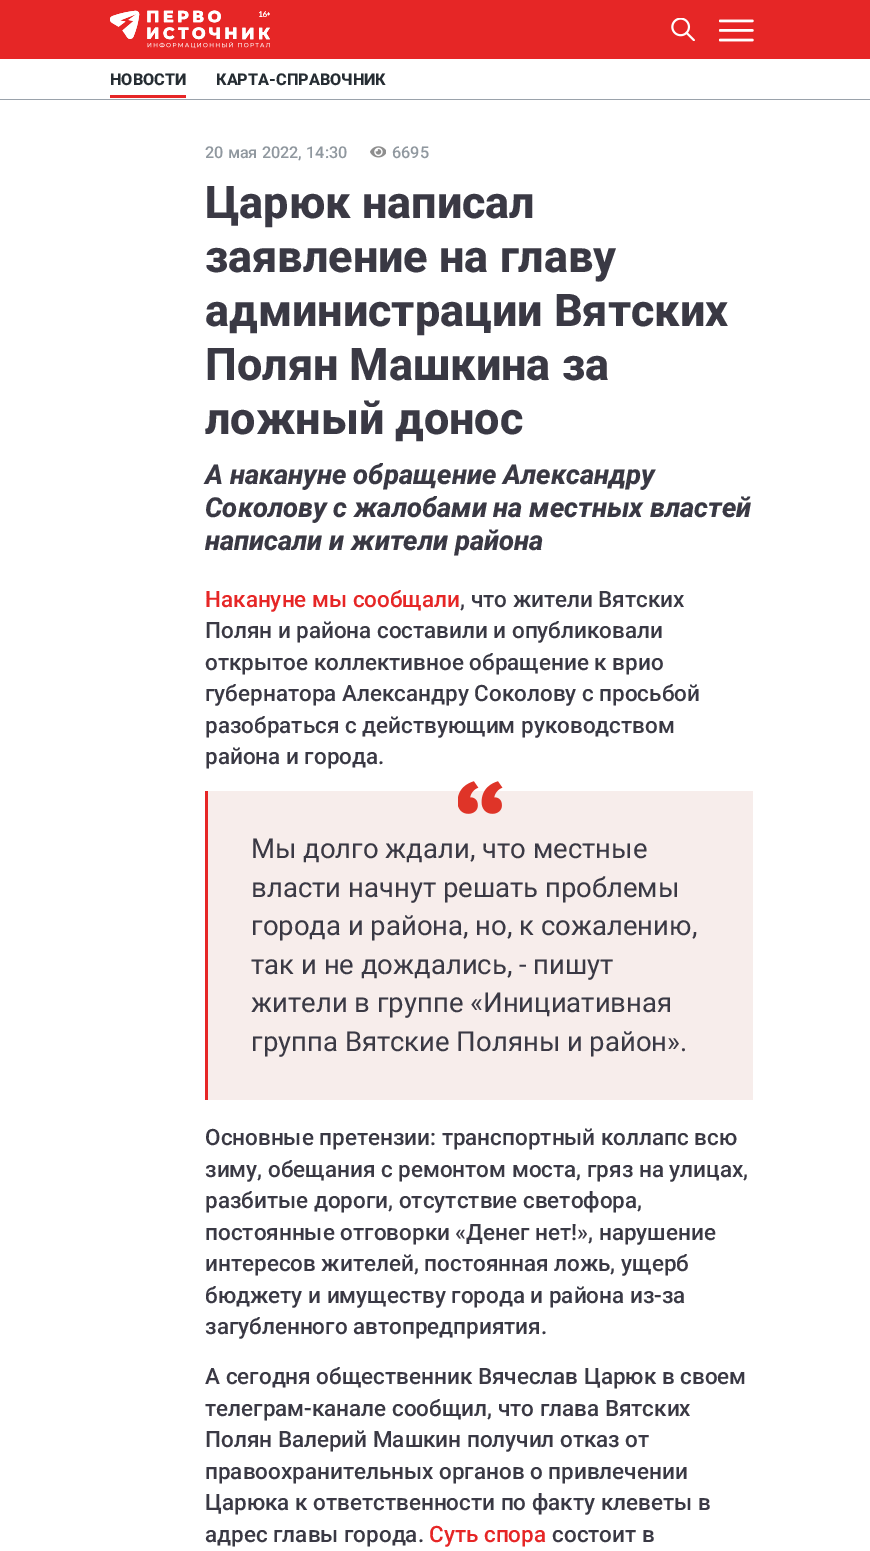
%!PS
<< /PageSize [870 1551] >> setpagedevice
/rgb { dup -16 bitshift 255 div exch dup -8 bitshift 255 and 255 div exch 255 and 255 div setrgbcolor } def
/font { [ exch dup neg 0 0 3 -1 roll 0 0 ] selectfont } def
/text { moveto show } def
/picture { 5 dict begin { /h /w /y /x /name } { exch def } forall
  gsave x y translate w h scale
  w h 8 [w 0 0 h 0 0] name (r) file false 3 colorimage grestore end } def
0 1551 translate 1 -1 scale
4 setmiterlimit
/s1 { /Roboto-ExtraBold 16.25 font 16#262D33 rgb } def
/s2 { /Roboto-Medium 16.25 font 16#90989F rgb } def
/s3 { /Roboto-ExtraBold 45 font 16#3A3944 rgb } def
/s4 { /Roboto-ExtraBoldItalic 27.5 font 16#3A3944 rgb } def
/s5 { /Roboto-Medium 22.5 font 16#E62626 rgb } def
/s6 { /Roboto-Medium 22.5 font 16#3A3944 rgb } def
/s7 { /Roboto-Regular 27.5 font 16#3A3944 rgb } def
16#FFFFFF rgb
0 0 870 1551 rectfill
16#9AA2AB rgb
0 99 870 1 rectfill
16#E62626 rgb
0 0 870 59 rectfill
(pic1.raw) 110 10 160 39 picture
(pic2.raw) 671 18 24 23 picture
(pic3.raw) 719 19 35 23 picture
110 95 76 3 rectfill
s1
(НОВОСТИ) 110 85 text
(КАРТА-СПРАВОЧНИК) 216 85 text
s2
(20 мая 2022, 14:30) 205 158 text
(pic4.raw) 370 146 16 12 picture
(6695) 392 158 text
s3
(Царюк написал) 205 218 text
(заявление на главу) 205 272 text
(администрации Вятских) 205 326 text
(Полян Машкина за) 205 380 text
(ложный донос) 205 434 text
s4
(А накануне обращение Александру) 205 484 text
(Соколову с жалобами на местных властей) 205 517 text
(написали и жители района) 205 550 text
s5
(Накануне мы сообщали) 205 607 text
s6
(, что жители Вятских) 460 607 text
(Полян и района составили и опубликовали) 205 638 text
(открытое коллективное обращение к врио) 205 670 text
(губернатора Александру Соколову с просьбой) 205 701 text
(разобраться с действующим руководством) 205 733 text
(района и города.) 205 764 text
16#F7EDEB rgb
208 791 545 309 rectfill
16#E62626 rgb
205 791 3 309 rectfill
(pic5.raw) 458 781 45 33 picture
s7
(Мы долго ждали, что местные) 251 858 text
(власти начнут решать проблемы) 251 897 text
(города и района, но, к сожалению,) 251 935 text
(так и не дождались, - пишут) 251 974 text
(жители в группе «Инициативная) 251 1012 text
(группа Вятские Поляны и район».) 251 1051 text
s6
(Основные претензии: транспортный коллапс всю) 205 1145 text
(зиму, обещания с ремонтом моста, гряз на улицах,) 205 1177 text
(разбитые дороги, отсутствие светофора,) 205 1208 text
(постоянные отговорки «Денег нет!», нарушение) 205 1240 text
(интересов жителей, постоянная ложь, ущерб) 205 1271 text
(бюджету и имуществу города и района из-за) 205 1303 text
(загубленного автопредприятия.) 205 1334 text
(А сегодня общественник Вячеслав Царюк в своем) 205 1384 text
(телеграм-канале сообщил, что глава Вятских) 205 1416 text
(Полян Валерий Машкин получил отказ от) 205 1447 text
(правоохранительных органов о привлечении) 205 1479 text
(Царюка к ответственности по факту клеветы в) 205 1510 text
(адрес главы города.) 205 1542 text
s5
(Суть спора) 429 1542 text
s6
(состоит в) 552 1542 text
showpage
